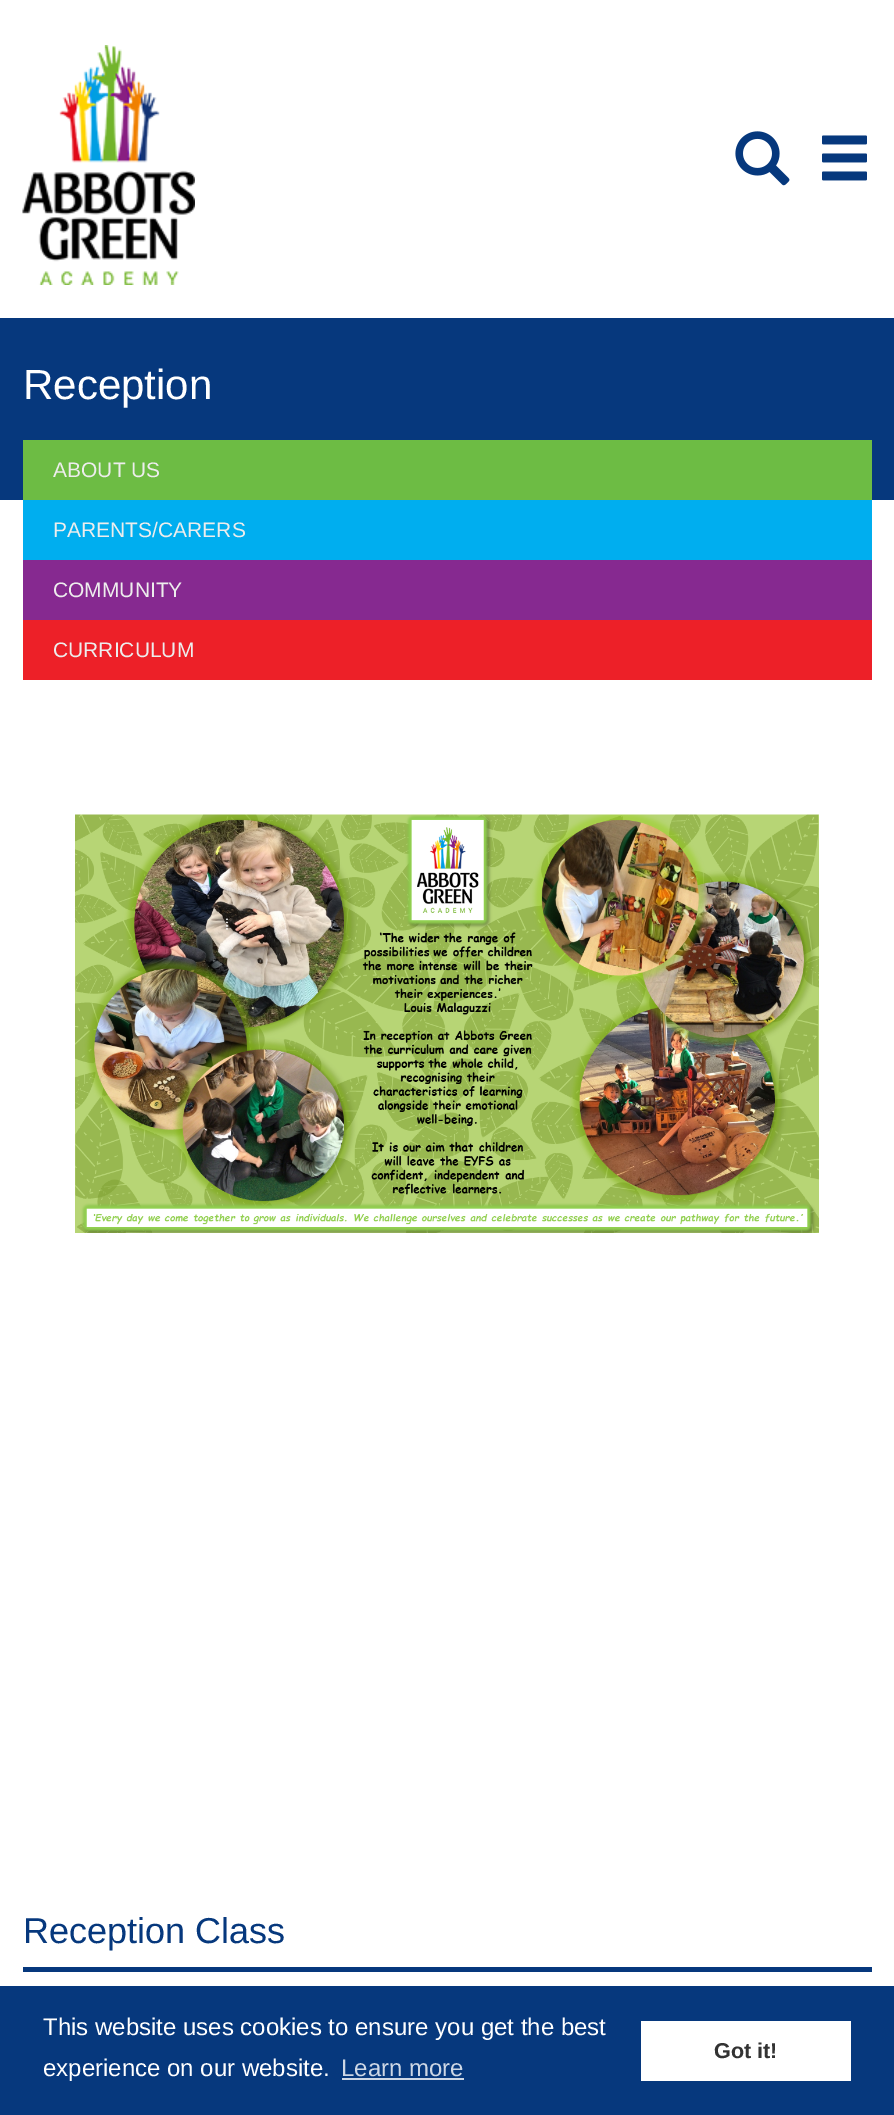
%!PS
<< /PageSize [894 2115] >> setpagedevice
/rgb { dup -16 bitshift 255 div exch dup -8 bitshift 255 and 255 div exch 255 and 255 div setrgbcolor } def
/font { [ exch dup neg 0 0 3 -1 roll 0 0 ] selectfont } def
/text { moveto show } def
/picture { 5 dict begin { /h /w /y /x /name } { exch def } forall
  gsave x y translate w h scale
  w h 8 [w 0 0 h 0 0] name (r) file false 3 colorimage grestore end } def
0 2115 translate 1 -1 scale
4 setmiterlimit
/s1 { /LiberationSans-Regular 42 font 16#FFFFFF rgb } def
/s2 { /LiberationSans-Regular 21 font 16#EDEDED rgb } def
/s3 { /LiberationSans-Regular 36 font 16#06387D rgb } def
/s4 { /LiberationSans-Regular 24 font 16#FFFFFF rgb } def
/s5 { /LiberationSans-Regular 24 font 16#CDD7E5 rgb } def
/s6 { /LiberationSans-Bold 21.5 font 16#333333 rgb } def
16#FFFFFF rgb
0 0 894 2115 rectfill
(pic1.raw) 22 45 173 240 picture
(pic2.raw) 735 131 55 55 picture
(pic3.raw) 822 135 45 46 picture
16#06387D rgb
0 318 894 182 rectfill
s1
(Reception) 23 399 text
16#6DBC44 rgb
23 440 849 60 rectfill
s2
(ABOUT US) 53 477 text
16#00AEEF rgb
23 500 849 60 rectfill
s2
(PARENTS/CARERS) 53 537 text
16#862990 rgb
23 560 849 60 rectfill
s2
(COMMUNITY) 53 597 text
16#ED2028 rgb
23 620 849 60 rectfill
s2
(CURRICULUM) 53 657 text
(pic4.raw) 75 814 744 419 picture
16#06387D rgb
23 1967 849 5 rectfill
s3
(Reception Class) 23 1943 text
0 1986 894 129 rectfill
s4
(This website uses cookies to ensure you get the best) 43 2035 text
(experience on our website.) 43 2076 text
s5
(Learn more) 341 2076 text
342 2078 122 2 rectfill
16#FFFFFF rgb
641 2021 210 60 rectfill
s6
(Got it!) 714 2058 text
showpage
